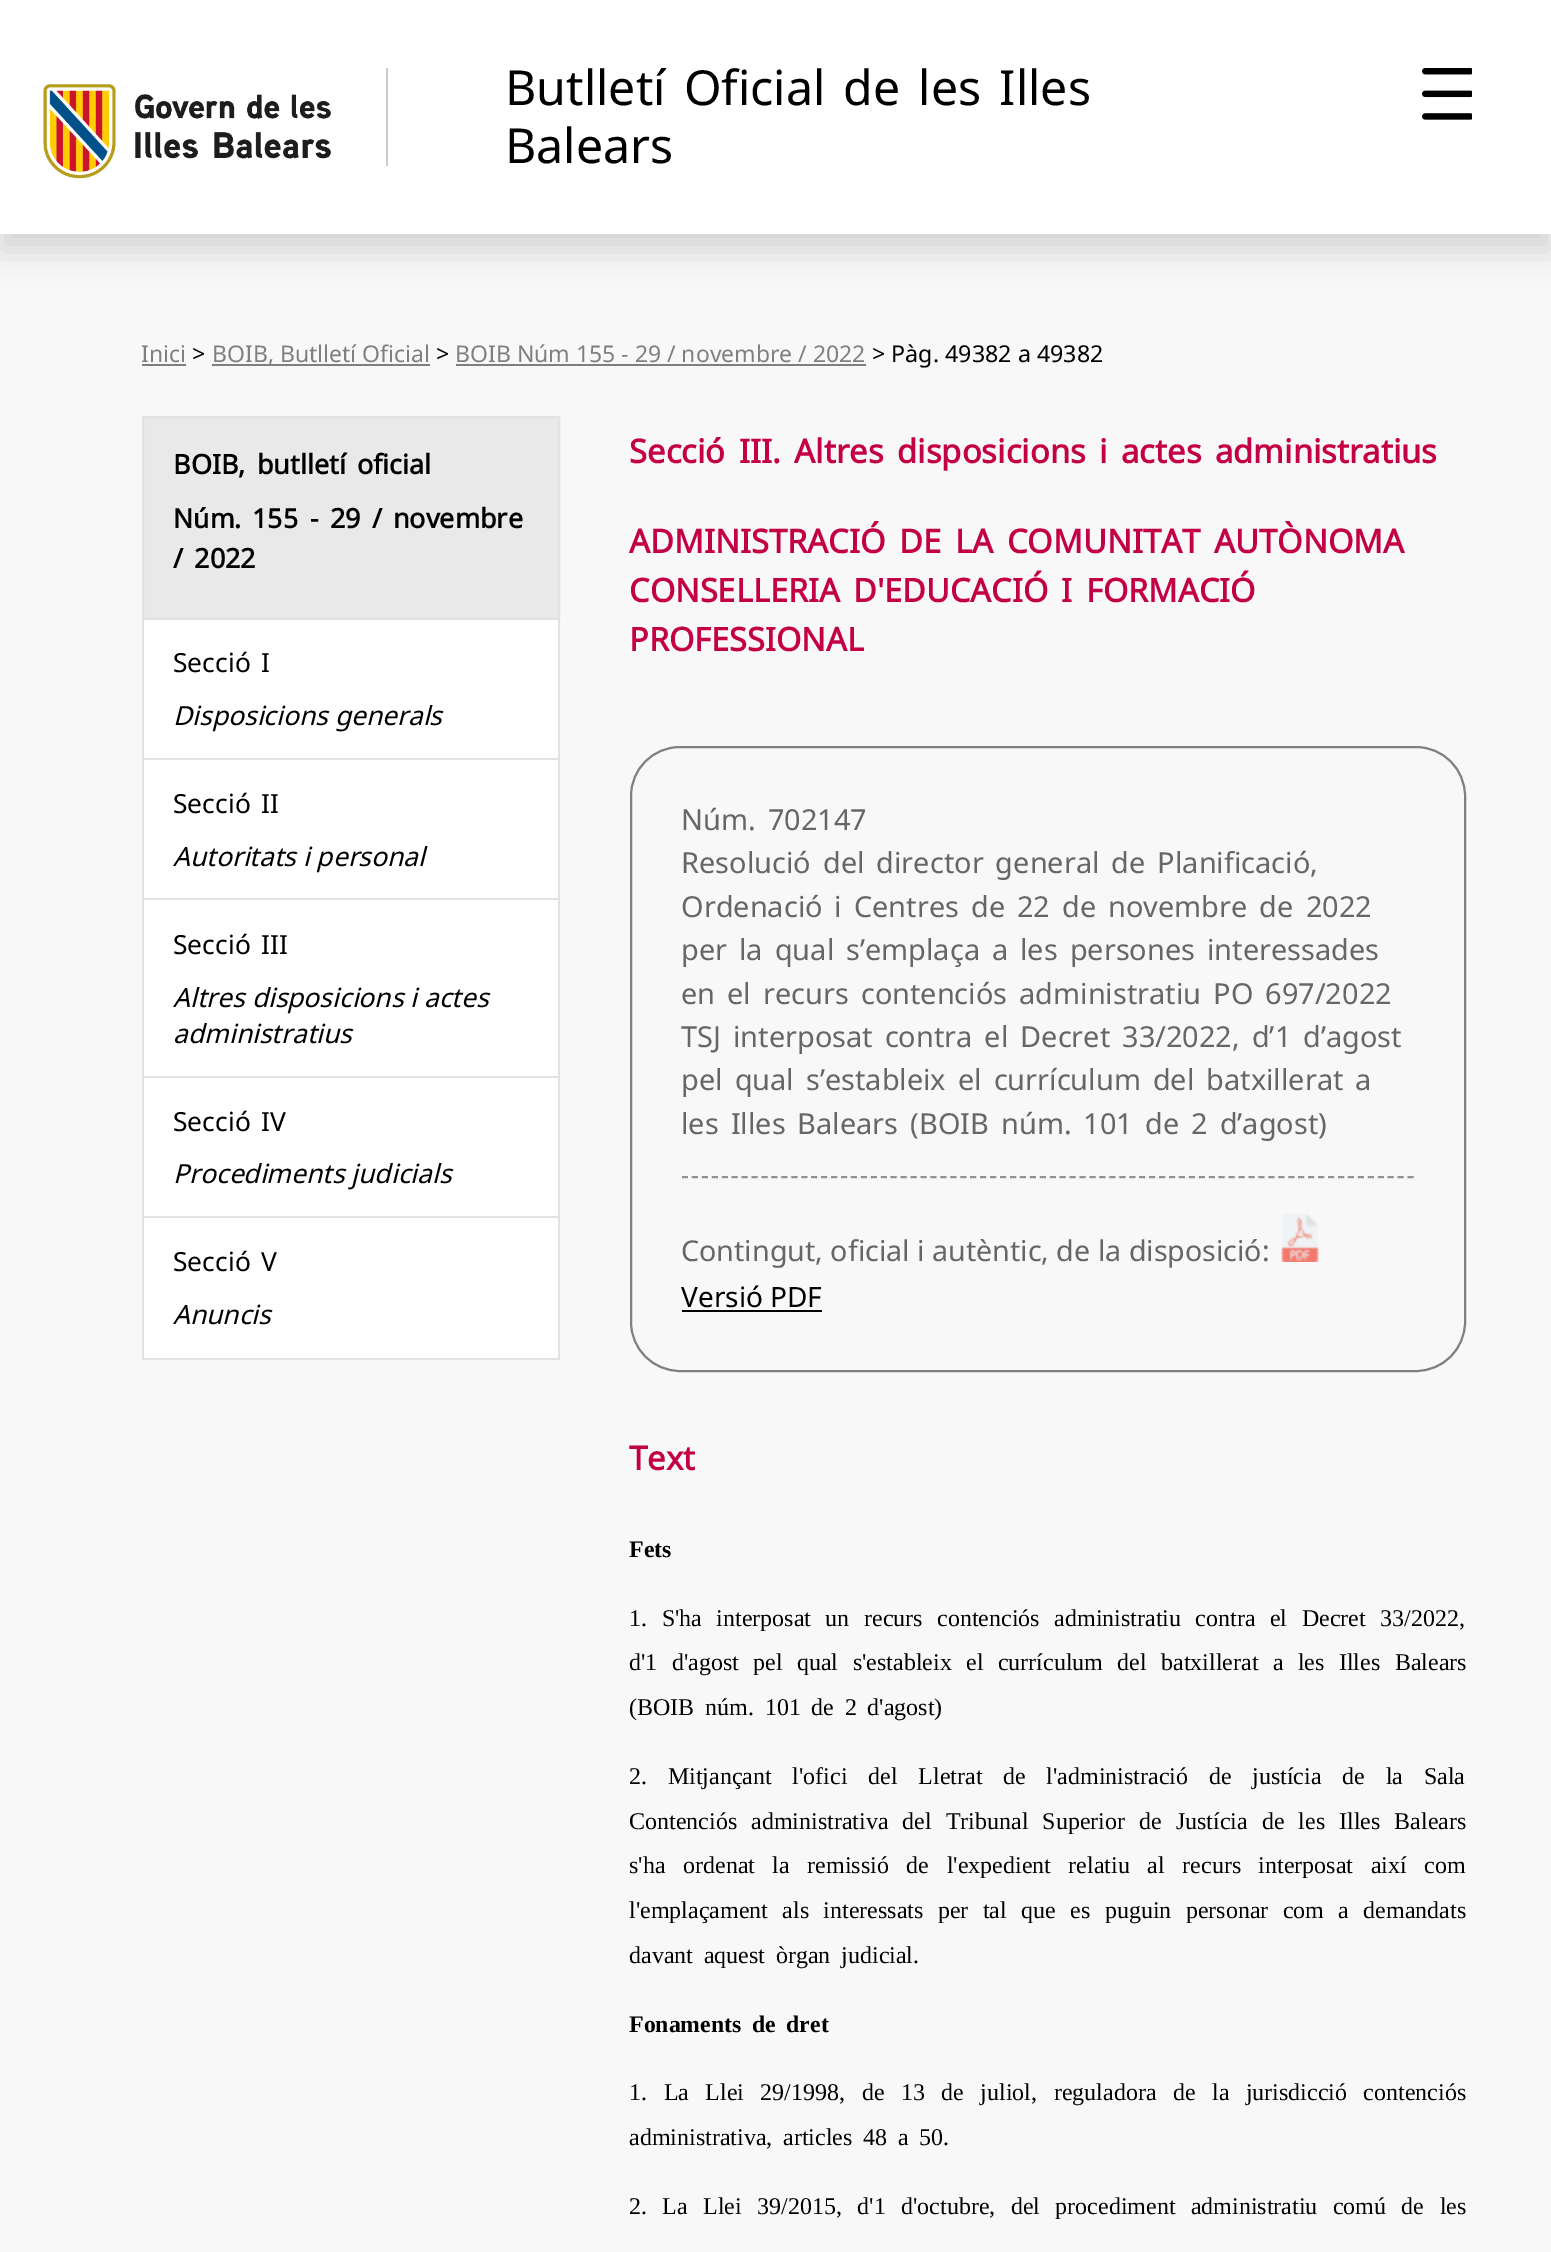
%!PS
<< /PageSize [1551 2252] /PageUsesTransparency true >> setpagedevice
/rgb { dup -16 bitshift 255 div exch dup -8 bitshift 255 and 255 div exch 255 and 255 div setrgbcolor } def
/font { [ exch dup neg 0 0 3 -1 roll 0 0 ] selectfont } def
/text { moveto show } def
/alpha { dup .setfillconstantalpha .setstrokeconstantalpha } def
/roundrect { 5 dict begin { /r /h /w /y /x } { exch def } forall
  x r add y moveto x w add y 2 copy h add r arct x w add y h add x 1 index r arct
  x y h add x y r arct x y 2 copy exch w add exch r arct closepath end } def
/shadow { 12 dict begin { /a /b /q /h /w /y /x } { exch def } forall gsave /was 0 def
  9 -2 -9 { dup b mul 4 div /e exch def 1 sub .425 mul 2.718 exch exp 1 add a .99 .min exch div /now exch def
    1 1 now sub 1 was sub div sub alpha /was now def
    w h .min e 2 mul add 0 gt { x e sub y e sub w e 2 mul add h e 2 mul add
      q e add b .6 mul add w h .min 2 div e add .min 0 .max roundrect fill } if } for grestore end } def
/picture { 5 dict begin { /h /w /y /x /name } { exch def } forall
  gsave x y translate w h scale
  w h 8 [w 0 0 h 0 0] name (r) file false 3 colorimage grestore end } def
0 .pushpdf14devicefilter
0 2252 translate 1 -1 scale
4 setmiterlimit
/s1 { /NotoSans-Regular 48.25 font 16#000000 rgb } def
/s2 { /NotoSans-Regular 23 font 16#7F7F7F rgb } def
/s3 { /NotoSans-Regular 23.25 font 16#000000 rgb } def
/s4 { /NotoSans-Italic 26.4 font 16#000000 rgb } def
/s5 { /NotoSans-Bold 32.5 font 16#C30045 rgb } def
/s6 { /NotoSans-Regular 28.65 font 16#666666 rgb } def
/s7 { /NotoSans-Regular 28 font 16#000000 rgb } def
/s8 { /NotoSans-Bold 33 font 16#C30045 rgb } def
/s9 { /LiberationSerif-Bold 23.75 font 16#000000 rgb } def
16#F8F8F8 rgb
0 0 1551 2252 rectfill
16#000000 rgb
0 16 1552 234 0 16 0.15 shadow
16#FFFFFF rgb
0 0 1551 234 rectfill
16#CCCCCC rgb
386 68 2 98 rectfill
(pic1.raw) 43 84 288 95 picture
/NotoSans-Regular 48.25 font
16#000000 rgb
505 105 moveto 5.5 0 32 (Butlletí Oficial de les Illes) widthshow
(Balears) 505 163 text
(pic2.raw) 1422 68 50 52 picture
s2
(Inici) 141 362 text
142 364 44 2 rectfill
s3
(>) 192 362 text
16#7F7F7F rgb
212 364 218 2 rectfill
s2
(BOIB, Butlletí Oficial) 212 362 text
s3
(>) 436 362 text
s2
(BOIB Núm 155 - 29 / novembre / 2022) 455 362 text
456 364 410 2 rectfill
s3
(> Pàg. 49382 a 49382) 872 362 text
16#E9E9E9 rgb
143 417 moveto 559 417 lineto 559 619 lineto 143 619 lineto closepath gsave fill grestore
16#E2E2E2 rgb
2 setlinewidth
stroke
/NotoSans-Bold 27 font
16#000000 rgb
173 474 moveto 4 0 32 (BOIB, butlletí oficial) widthshow
/NotoSans-Bold 26.5 font
173 528 moveto 4 0 32 (Núm. 155) widthshow
/NotoSans-Bold 27 font
310 528 moveto 4 0 32 (- 29 / novembre) widthshow
173 568 moveto 4 0 32 (/ 2022) widthshow
16#E2E2E2 rgb
558 620 2 740 rectfill
142 620 2 740 rectfill
16#FFFFFF rgb
144 620 414 138 rectfill
16#E2E2E2 rgb
144 758 414 2 rectfill
/NotoSans-Regular 26.4 font
16#000000 rgb
173 672 moveto 4 0 32 (Secció I) widthshow
s4
(Disposicions generals) 173 725 text
16#FFFFFF rgb
144 760 414 138 rectfill
16#E2E2E2 rgb
144 898 414 2 rectfill
/NotoSans-Regular 26.4 font
16#000000 rgb
173 813 moveto 4 0 32 (Secció II) widthshow
s4
(Autoritats i personal) 173 866 text
16#FFFFFF rgb
144 900 414 176 rectfill
16#E2E2E2 rgb
144 1076 414 2 rectfill
/NotoSans-Regular 26.4 font
16#000000 rgb
173 954 moveto 4 0 32 (Secció III) widthshow
s4
(Altres disposicions i actes) 173 1007 text
(administratius) 173 1043 text
16#FFFFFF rgb
144 1078 414 138 rectfill
16#E2E2E2 rgb
144 1216 414 2 rectfill
/NotoSans-Regular 26.4 font
16#000000 rgb
173 1131 moveto 4 0 32 (Secció IV) widthshow
s4
(Procediments judicials) 173 1183 text
16#FFFFFF rgb
144 1218 414 140 rectfill
16#E2E2E2 rgb
144 1358 414 2 rectfill
/NotoSans-Regular 26.4 font
16#000000 rgb
173 1271 moveto 4 0 32 (Secció V) widthshow
s4
(Anuncis) 173 1324 text
/NotoSans-Bold 32.8 font
16#C30045 rgb
629 463 moveto 5 0 32 (Secció III. Altres disposicions i actes administratius) widthshow
629 553 moveto 5 0 32 (ADMINISTRACIÓ DE LA COMUNITAT AUTÒNOMA) widthshow
/NotoSans-Bold 32.5 font
629 602 moveto 5 0 32 (CONSELLERIA D'EDUCACIÓ I FORMACIÓ) widthshow
(PROFESSIONAL) 629 651 text
16#808080 rgb
631 747 834 624 49 roundrect stroke
16#919191 rgb
[6 3.94] 0 setdash
682 1177 moveto 1414 1177 lineto stroke
/NotoSans-Regular 28.9 font
16#666666 rgb
681 830 moveto 4.5 0 32 (Núm. 702147) widthshow
681 873 moveto 4.5 0 32 (Resolució del director general de Planificació,) widthshow
681 917 moveto 4.5 0 32 (Ordenació i Centres de 22 de novembre de 2022) widthshow
681 960 moveto 4.5 0 32 (per la qual s’emplaça a les persones interessades) widthshow
681 1004 moveto 4.5 0 32 (en el recurs contenciós administratiu PO 697/2022) widthshow
681 1047 moveto 4.5 0 32 (TSJ interposat contra el Decret 33/2022, d’1 d’agost) widthshow
681 1090 moveto 4.5 0 32 (pel qual s’estableix el currículum del batxillerat a) widthshow
681 1134 moveto 4.5 0 32 (les Illes Balears \(BOIB núm. 101 de 2 d’agost\)) widthshow
s6
(Contingut, oficial i autèntic, de la disposició:) 681 1261 text
(pic3.raw) 1281 1214 38 48 picture
s7
(Versió PDF) 681 1307 text
682 1310 140 2 rectfill
s8
(Text) 629 1470 text
s9
(Fets) 629 1557 text
/LiberationSerif-Regular 24 font
629 1626 moveto 8.5 0 32 (1. S'ha interposat un recurs contenciós administratiu contra el Decret 33/2022,) widthshow
629 1670 moveto 8.4 0 32 (d'1 d'agost pel qual s'estableix el currículum del batxillerat a les Illes Balears) widthshow
629 1715 moveto 4.75 0 32 (\(BOIB núm. 101 de 2 d'agost\)) widthshow
629 1784 moveto 14.75 0 32 (2. Mitjançant l'ofici del Lletrat de l'administració de justícia de la Sala) widthshow
629 1829 moveto 8 0 32 (Contenciós administrativa del Tribunal Superior de Justícia de les Illes Balears) widthshow
629 1873 moveto 11.6 0 32 (s'ha ordenat la remissió de l'expedient relatiu al recurs interposat així com) widthshow
629 1918 moveto 8.4 0 32 (l'emplaçament als interessats per tal que es puguin personar com a demandats) widthshow
629 1963 moveto 4.75 0 32 (davant aquest òrgan judicial.) widthshow
/LiberationSerif-Bold 23.75 font
629 2032 moveto 4.75 0 32 (Fonaments de dret) widthshow
/LiberationSerif-Regular 24 font
629 2100 moveto 10.5 0 32 (1. La Llei 29/1998, de 13 de juliol, reguladora de la jurisdicció contenciós) widthshow
629 2145 moveto 4.75 0 32 (administrativa, articles 48 a 50.) widthshow
629 2214 moveto 9.4 0 32 (2. La Llei 39/2015, d'1 d'octubre, del procediment administratiu comú de les) widthshow
.poppdf14devicefilter showpage
